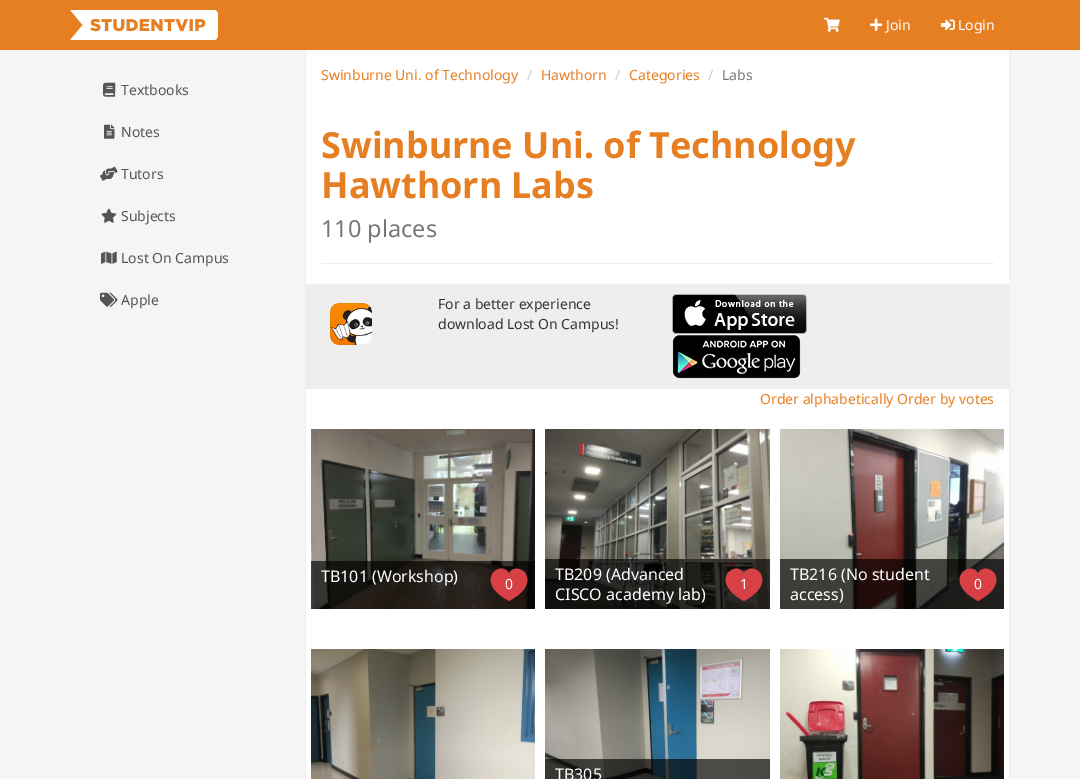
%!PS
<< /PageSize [1080 779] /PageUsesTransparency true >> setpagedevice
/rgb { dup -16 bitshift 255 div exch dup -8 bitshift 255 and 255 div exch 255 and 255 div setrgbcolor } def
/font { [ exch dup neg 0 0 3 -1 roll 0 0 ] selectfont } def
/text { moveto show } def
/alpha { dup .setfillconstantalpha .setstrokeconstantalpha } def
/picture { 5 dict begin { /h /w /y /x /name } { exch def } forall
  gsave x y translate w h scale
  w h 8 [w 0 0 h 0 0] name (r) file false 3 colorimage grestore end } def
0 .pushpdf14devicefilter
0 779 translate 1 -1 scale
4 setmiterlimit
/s1 { /NotoSans-Regular 14 font 16#FFFFFF rgb } def
/s2 { /NotoSans-Regular 14 font 16#555555 rgb } def
/s3 { /NotoSans-Regular 14 font 16#E67E22 rgb } def
/s4 { /NotoSans-Regular 14 font 16#CCCCCC rgb } def
/s5 { /NotoSans-Regular 14 font 16#777777 rgb } def
/s6 { /NotoSans-Bold 36 font 16#E67E22 rgb } def
/s7 { /NotoSans-Regular 23.5 font 16#777777 rgb } def
/s8 { /NotoSans-Regular 14 font 16#333333 rgb } def
/s9 { /NotoSans-Regular 16 font 16#FFFFFF rgb } def
16#F5F5F5 rgb
0 0 1080 779 rectfill
16#E67E22 rgb
0 0 1080 50 rectfill
(pic1.raw) 70 10 148 30 picture
(pic2.raw) 824 17 16 15 picture
(pic3.raw) 870 18 13 13 picture
s1
(Join) 886 30 text
(pic4.raw) 941 19 14 12 picture
(Login) 958 30 text
(pic5.raw) 103 82 13 15 picture
s2
(Textbooks) 121 95 text
(pic6.raw) 104 124 11 15 picture
(Notes) 121 137 text
(pic7.raw) 100 166 18 15 picture
(Tutors) 121 179 text
(pic8.raw) 101 208 16 15 picture
(Subjects) 121 221 text
(pic9.raw) 101 251 16 13 picture
(Lost On Campus) 121 263 text
(pic10.raw) 100 292 18 15 picture
(Apple) 121 305 text
16#FFFFFF rgb
306 50 703 729 rectfill
16#EEEEEE rgb
1009 50 1 729 rectfill
305 50 1 729 rectfill
s3
(Swinburne Uni. of Technology) 321 80 text
s4
(/) 527 80 text
s3
(Hawthorn) 541 80 text
s4
(/) 615 80 text
s3
(Categories) 629 80 text
s4
(/) 708 80 text
s5
(Labs) 722 80 text
16#EEEEEE rgb
321 263 673 1 rectfill
s6
(Swinburne Uni. of Technology) 321 158 text
(Hawthorn Labs) 321 198 text
s7
(110 places) 321 237 text
16#EEEEEE rgb
306 284 703 105 rectfill
(pic11.raw) 330 303 42 42 picture
s8
(For a better experience) 438 309 text
(download Lost On Campus!) 438 329 text
(pic12.raw) 672 294 135 40 picture
(pic13.raw) 672 334 129 45 picture
s3
(Order alphabetically Order by votes) 760 404 text
(pic14.raw) 311 429 224 180 picture
0.65 alpha
16#010000 rgb
311 561 224 48 rectfill
1 alpha
s9
(TB101 \(Workshop\)) 321 582 text
16#D74044 rgb
509 573.5 moveto 515 561 538 574.5 521.5 592 curveto 518 595.5 513.5 598.5 509 601 curveto 504.5 598.5 500 595.5 496.5 592 curveto 480 574.5 503 561 509 573.5 curveto closepath fill
s1
(0) 505 589 text
(pic15.raw) 545 429 225 180 picture
0.65 alpha
16#010000 rgb
545 559 225 50 rectfill
1 alpha
s9
(TB209 \(Advanced) 555 580 text
(CISCO academy lab\)) 555 600 text
16#D74044 rgb
744 573.5 moveto 750 561 773 574.5 756.5 592 curveto 753 595.5 748.5 598.5 744 601 curveto 739.5 598.5 735 595.5 731.5 592 curveto 715 574.5 738 561 744 573.5 curveto closepath fill
s1
(1) 740 589 text
(pic16.raw) 780 429 224 180 picture
0.65 alpha
16#010000 rgb
780 559 224 50 rectfill
1 alpha
s9
(TB216 \(No student) 790 580 text
(access\)) 790 600 text
16#D74044 rgb
978 573.5 moveto 984 561 1007 574.5 990.5 592 curveto 987 595.5 982.5 598.5 978 601 curveto 973.5 598.5 969 595.5 965.5 592 curveto 949 574.5 972 561 978 573.5 curveto closepath fill
s1
(0) 974 589 text
(pic17.raw) 311 649 224 130 picture
(pic18.raw) 545 649 225 130 picture
0.65 alpha
16#010000 rgb
545 759 225 20 rectfill
1 alpha
s9
(TB305) 555 780 text
(pic19.raw) 780 649 224 130 picture
.poppdf14devicefilter showpage
